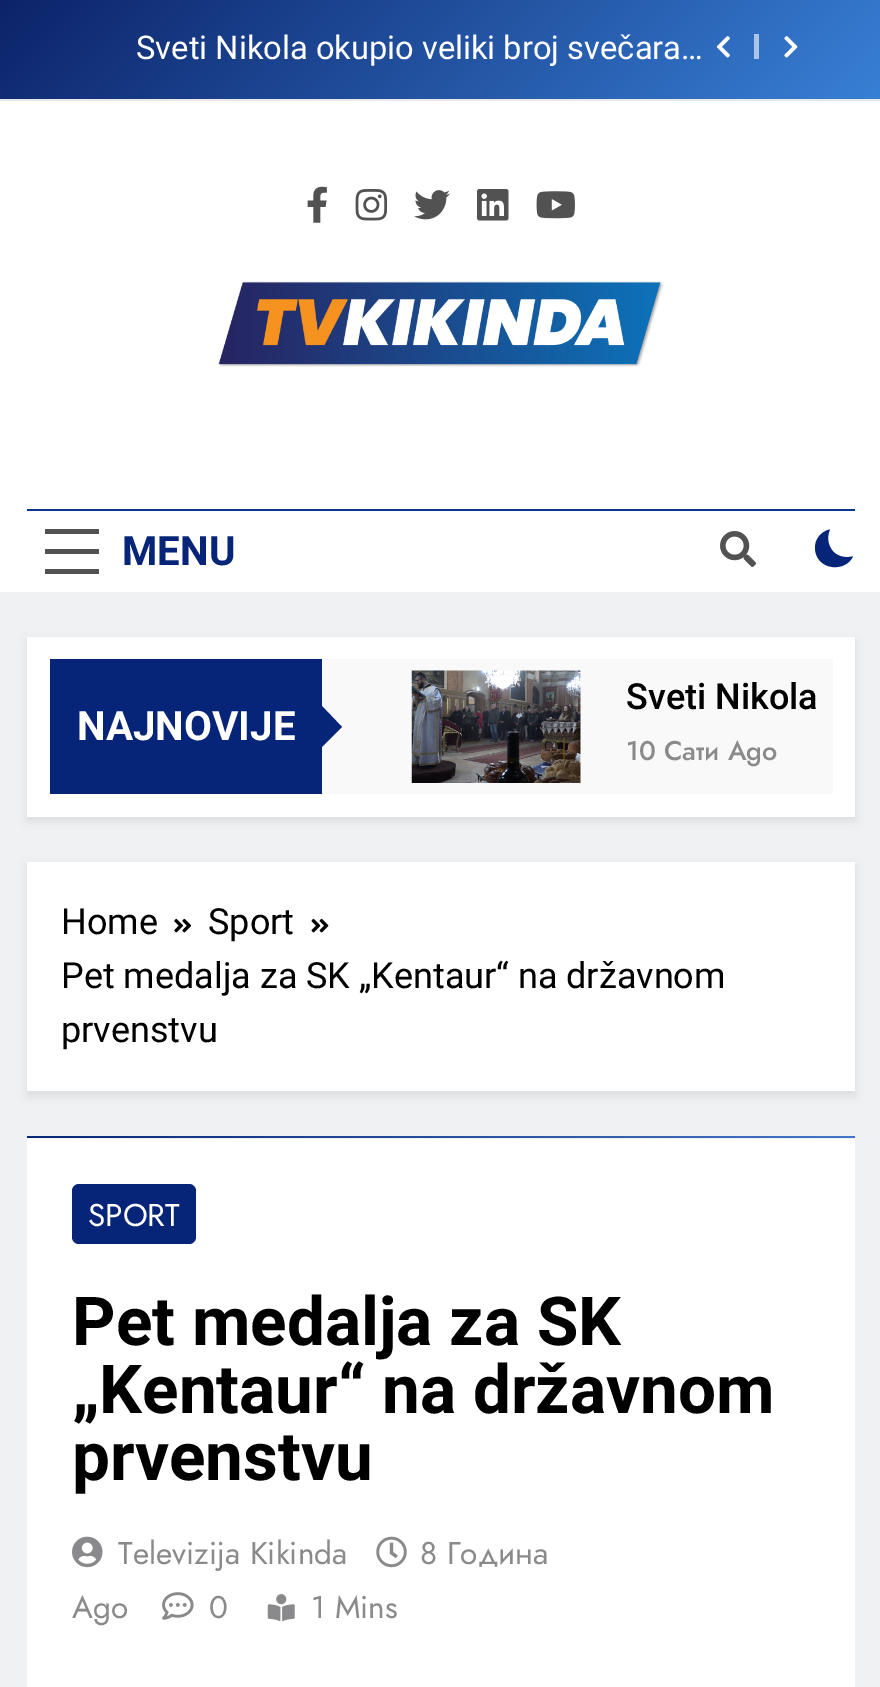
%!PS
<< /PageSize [880 1687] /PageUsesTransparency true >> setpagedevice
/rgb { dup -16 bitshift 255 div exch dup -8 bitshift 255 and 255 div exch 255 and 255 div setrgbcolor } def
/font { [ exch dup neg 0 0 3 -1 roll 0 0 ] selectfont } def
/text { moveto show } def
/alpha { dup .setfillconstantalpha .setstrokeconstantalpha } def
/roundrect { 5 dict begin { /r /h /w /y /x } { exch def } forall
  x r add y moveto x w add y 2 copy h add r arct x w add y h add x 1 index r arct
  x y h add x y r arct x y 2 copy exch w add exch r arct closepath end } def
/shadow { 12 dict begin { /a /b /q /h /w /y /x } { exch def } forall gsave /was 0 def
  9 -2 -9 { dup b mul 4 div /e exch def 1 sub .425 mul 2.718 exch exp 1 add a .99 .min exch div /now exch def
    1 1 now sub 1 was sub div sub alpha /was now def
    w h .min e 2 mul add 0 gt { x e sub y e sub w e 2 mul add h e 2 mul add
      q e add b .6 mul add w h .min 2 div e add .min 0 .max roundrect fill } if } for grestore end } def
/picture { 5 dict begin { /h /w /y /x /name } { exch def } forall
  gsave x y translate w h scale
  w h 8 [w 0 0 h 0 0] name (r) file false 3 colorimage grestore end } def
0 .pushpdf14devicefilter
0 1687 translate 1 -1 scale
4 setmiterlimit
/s1 { /Roboto-Regular 32.7 font 16#FFFFFF rgb } def
/s2 { /Roboto-Bold 40.5 font 16#072578 rgb } def
/s3 { /Roboto-Bold 40.5 font 16#FFFFFF rgb } def
/s4 { /Roboto-Medium 36 font 16#000000 rgb } def
/s5 { /Jost-Medium 27 font 16#8A8A8C rgb } def
/s6 { /Roboto-Regular 36 font 16#000000 rgb } def
/s7 { /Jost-Regular 31.5 font 16#FFFFFF rgb } def
/s8 { /Roboto-Bold 67.5 font 16#000000 rgb } def
/s9 { /Jost-Regular 31.5 font 16#8A8A8C rgb } def
16#F0F1F2 rgb
0 0 880 1687 rectfill
gsave 0 0 moveto 880 0 lineto 880 99 lineto 0 99 lineto closepath clip newpath
<< /ShadingType 2 /ColorSpace /DeviceRGB /Coords [196 -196 686 295] /Extend [true true] /Function << /FunctionType 2 /Domain [0 1] /C0 [0.047 0.137 0.412] /C1 [0.22 0.502 0.839] /N 1 >> >> shfill grestore
gsave 754 34 moveto 759 34 lineto 759 59 lineto 754 59 lineto closepath clip newpath
<< /ShadingType 2 /ColorSpace /DeviceRGB /Coords [196 -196 686 295] /Extend [true true] /Function << /FunctionType 2 /Domain [0 1] /C0 [0.62 0.655 0.765] /C1 [0.686 0.8 0.937] /N 1 >> >> shfill grestore
16#E8E8E8 rgb
0 99 880 2 rectfill
s1
(Sveti Nikola okupio veliki broj svečara…) 136 59 text
(pic1.raw) 716 36 14 22 picture
(pic2.raw) 784 36 14 22 picture
0 101 880 491 rectfill
(pic3.raw) 307 186 20 37 picture
(pic4.raw) 355 189 33 32 picture
(pic5.raw) 414 190 36 30 picture
(pic6.raw) 477 189 32 32 picture
(pic7.raw) 536 191 39 28 picture
(pic8.raw) 218 281 446 86 picture
16#0A3494 rgb
27 509 828 2 rectfill
16#525252 rgb
45 529 54 5 rectfill
45 549 54 5 rectfill
45 569 54 5 rectfill
s2
(MENU) 122 565 text
(pic9.raw) 720 531 36 36 picture
853 556.5 moveto 849 557 lineto 831 558.5 824.5 541 830 529.5 curveto 824.5 530.5 820 534 817.5 538.5 curveto 815 542.5 814.5 547.5 815.5 552 curveto 819 570 845 572.5 853 556.5 curveto closepath fill
16#000000 rgb
27 641 828 180 0 4.5 0.08 shadow
16#FFFFFF rgb
27 637 828 180 rectfill
16#072578 rgb
50 659 272 135 rectfill
s3
(NAJNOVIJE) 77 740 text
16#F9F9F9 rgb
322 659 511 135 rectfill
16#072578 rgb
320 749 moveto 320 704 lineto 342 727 lineto closepath fill
(pic10.raw) 411 670 170 113 picture
s4
(Sveti Nikola) 626 709 text
s5
(10 Сати Ago) 626 760 text
16#000000 rgb
27 866 828 230 0 4.5 0.08 shadow
16#FFFFFF rgb
27 862 828 229 rectfill
s6
(Home) 61 934 text
(pic11.raw) 174 918 18 15 picture
(Sport) 208 934 text
(pic12.raw) 311 918 18 15 picture
(Pet medalja za SK „Kentaur“ na državnom) 61 988 text
(prvenstvu) 61 1042 text
16#FFFFFF rgb
27 1139 828 548 rectfill
gsave 27 1136 moveto 855 1136 lineto 855 1138 lineto 27 1138 lineto closepath clip newpath
<< /ShadingType 2 /ColorSpace /DeviceRGB /Coords [233 930 649 1345] /Extend [true true] /Function << /FunctionType 2 /Domain [0 1] /C0 [0.031 0.157 0.471] /C1 [0.275 0.463 0.773] /N 1 >> >> shfill grestore
16#072578 rgb
72 1184 124 60 7 roundrect fill
s7
(SPORT) 88 1226 text
s8
(Pet medalja za SK) 72 1345 text
(„Kentaur“ na državnom) 72 1413 text
(prvenstvu) 72 1480 text
(pic13.raw) 72 1536 31 32 picture
s9
(Televizija Kikinda) 118 1564 text
(pic14.raw) 376 1536 31 32 picture
(8 Година) 420 1564 text
(Ago) 72 1618 text
(pic15.raw) 162 1592 32 28 picture
(0) 209 1618 text
(pic16.raw) 267 1594 28 28 picture
(1 Mins) 311 1618 text
.poppdf14devicefilter showpage
